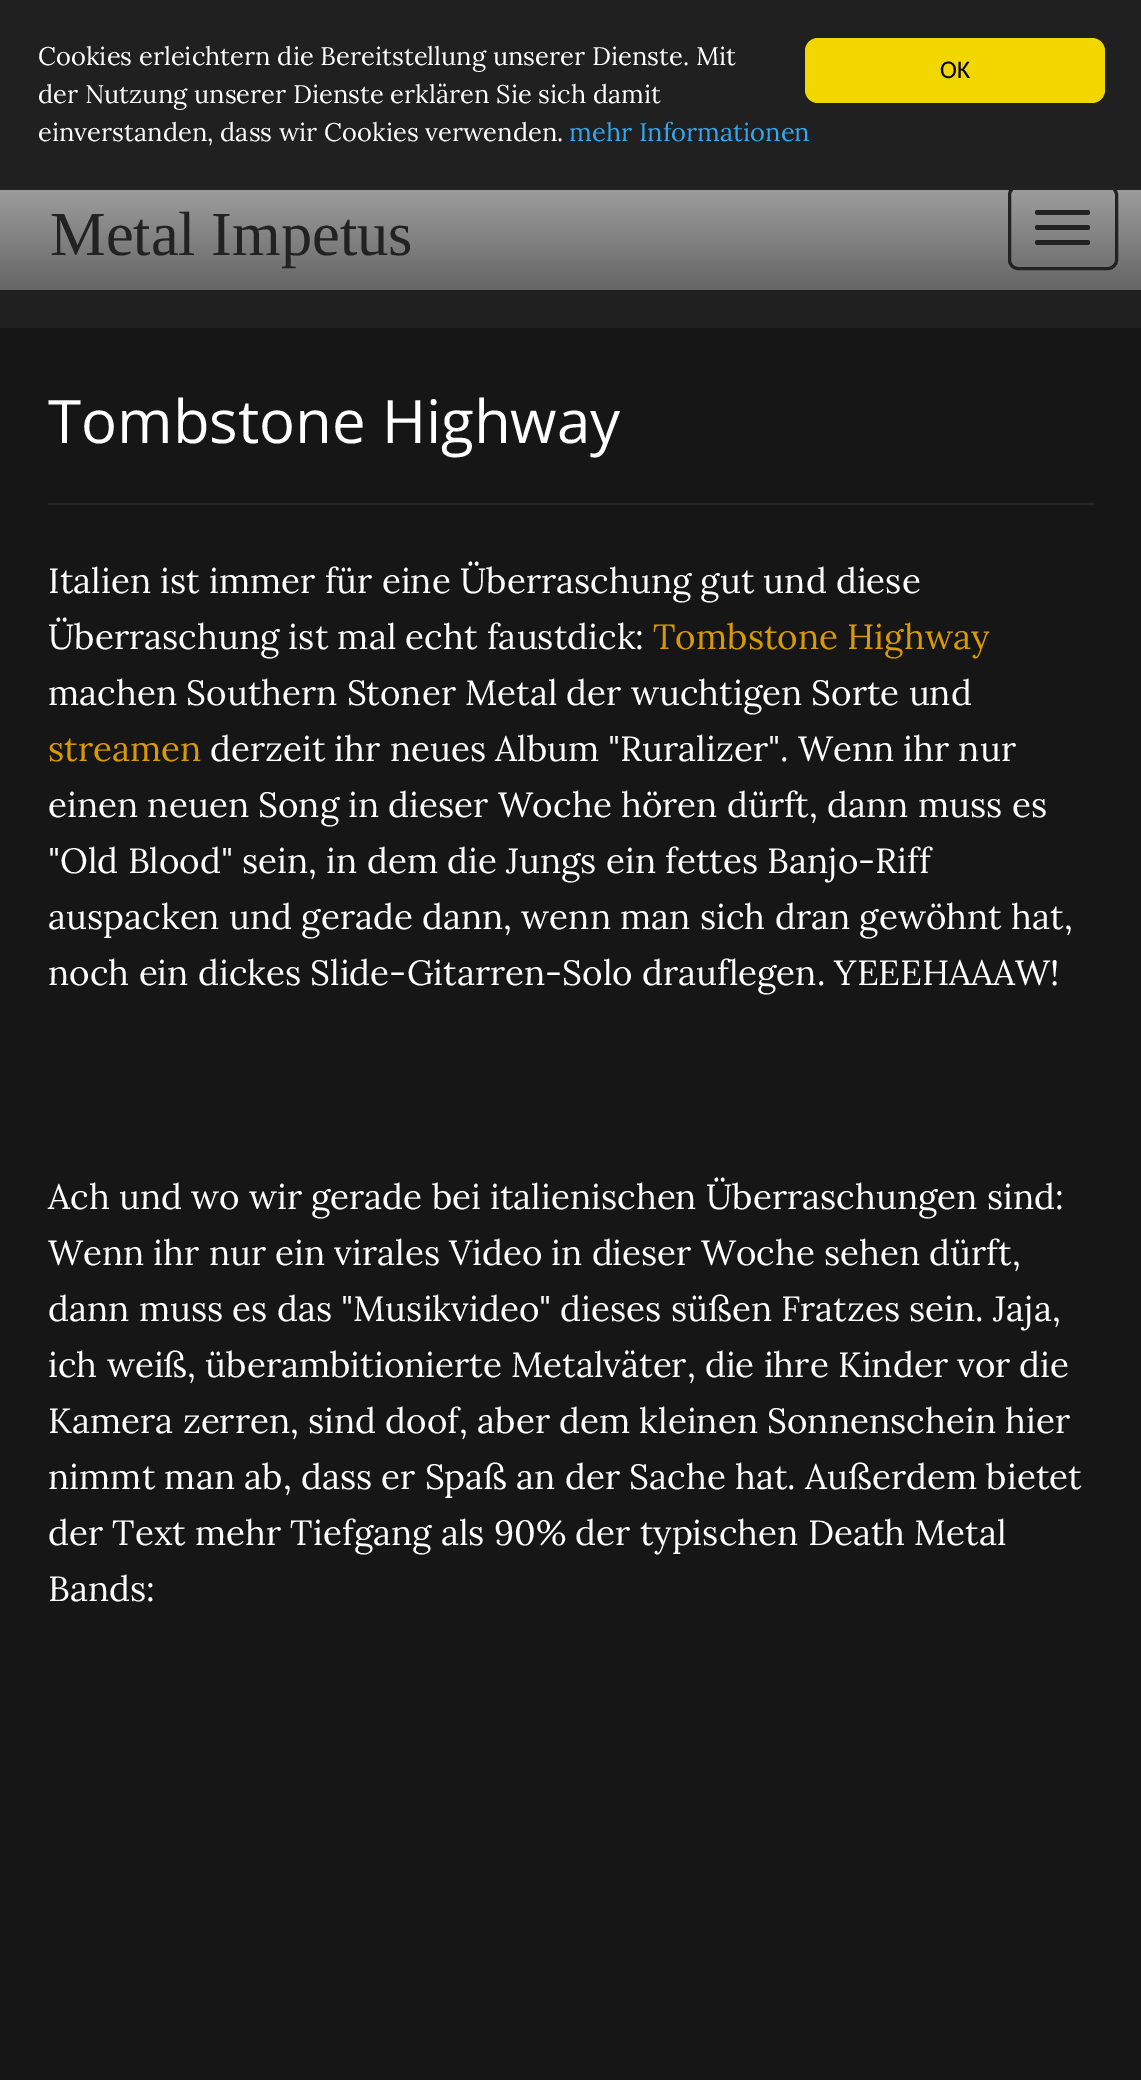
%!PS
<< /PageSize [1141 2080] >> setpagedevice
/rgb { dup -16 bitshift 255 div exch dup -8 bitshift 255 and 255 div exch 255 and 255 div setrgbcolor } def
/font { [ exch dup neg 0 0 3 -1 roll 0 0 ] selectfont } def
/text { moveto show } def
/roundrect { 5 dict begin { /r /h /w /y /x } { exch def } forall
  x r add y moveto x w add y 2 copy h add r arct x w add y h add x 1 index r arct
  x y h add x y r arct x y 2 copy exch w add exch r arct closepath end } def
0 2080 translate 1 -1 scale
4 setmiterlimit
/s1 { /Lora-Regular 25.5 font 16#FFFFFF rgb } def
/s2 { /Lora-Regular 25.5 font 16#31A8F0 rgb } def
/s3 { /Carlito-Regular 25.5 font 16#000000 rgb } def
/s4 { /LiberationSerif-Regular 62.5 font 16#222222 rgb } def
/s5 { /OpenSans-Regular 60 font 16#FFFFFF rgb } def
/s6 { /Lora-Regular 35 font 16#FFFFFF rgb } def
/s7 { /Lora-Regular 35 font 16#D99A00 rgb } def
16#202020 rgb
0 0 1141 2080 rectfill
s1
(Cookies erleichtern die Bereitstellung unserer Dienste. Mit) 38 65 text
(der Nutzung unserer Dienste erklären Sie sich damit) 38 103 text
(einverstanden, dass wir Cookies verwenden.) 38 141 text
s2
(mehr Informationen) 569 141 text
16#F1D600 rgb
805 38 300 65 13 roundrect fill
s3
(OK) 940 78 text
gsave 0 190 moveto 1141 190 lineto 1141 290 lineto 0 290 lineto closepath clip newpath
<< /ShadingType 2 /ColorSpace /DeviceRGB /Coords [571 165 571 290] /Extend [true true] /Function << /FunctionType 2 /Domain [0 1] /C0 [0.667 0.667 0.667] /C1 [0.4 0.4 0.4] /N 1 >> >> shfill grestore
s4
(Metal Impetus) 50 255 text
3 setlinewidth
1009.5 186.5 107 82 8.5 roundrect stroke
1035 210 55 5 2.5 roundrect fill
1035 225 55 5 2.5 roundrect fill
1035 240 55 5 2.5 roundrect fill
16#161616 rgb
0 328 1141 1752 rectfill
16#262626 rgb
48 503 1047 2 rectfill
s5
(Tombstone Highway) 48 443 text
s6
(Italien ist immer für eine Überraschung gut und diese) 48 593 text
(Überraschung ist mal echt faustdick:) 48 649 text
s7
(Tombstone Highway) 653 649 text
s6
(machen Southern Stoner Metal der wuchtigen Sorte und) 48 705 text
s7
(streamen) 48 761 text
s6
(derzeit ihr neues Album "Ruralizer". Wenn ihr nur) 210 761 text
(einen neuen Song in dieser Woche hören dürft, dann muss es) 48 817 text
("Old Blood" sein, in dem die Jungs ein fettes Banjo-Riff) 48 873 text
(auspacken und gerade dann, wenn man sich dran gewöhnt hat,) 48 929 text
(noch ein dickes Slide-Gitarren-Solo drauflegen. YEEEHAAAW!) 48 985 text
(Ach und wo wir gerade bei italienischen Überraschungen sind:) 48 1209 text
(Wenn ihr nur ein virales Video in dieser Woche sehen dürft,) 48 1265 text
(dann muss es das "Musikvideo" dieses süßen Fratzes sein. Jaja,) 48 1321 text
(ich weiß, überambitionierte Metalväter, die ihre Kinder vor die) 48 1377 text
(Kamera zerren, sind doof, aber dem kleinen Sonnenschein hier) 48 1433 text
(nimmt man ab, dass er Spaß an der Sache hat. Außerdem bietet) 48 1489 text
(der Text mehr Tiefgang als 90% der typischen Death Metal) 48 1545 text
(Bands:) 48 1601 text
showpage
